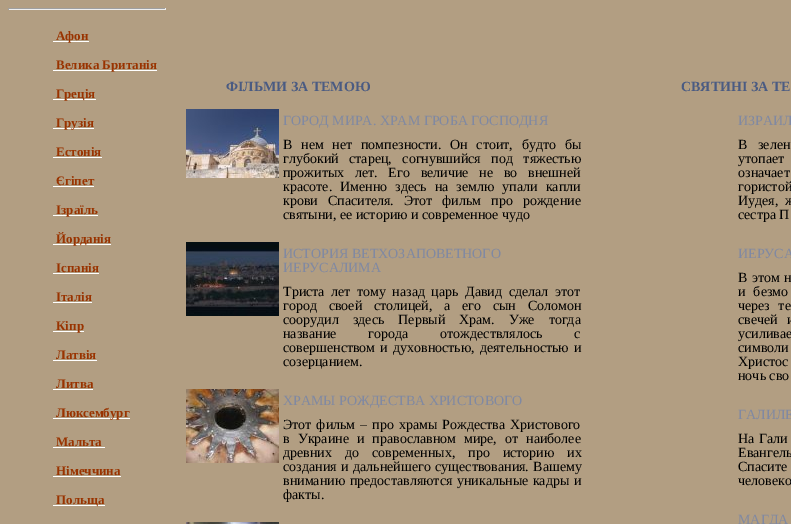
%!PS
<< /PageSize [791 524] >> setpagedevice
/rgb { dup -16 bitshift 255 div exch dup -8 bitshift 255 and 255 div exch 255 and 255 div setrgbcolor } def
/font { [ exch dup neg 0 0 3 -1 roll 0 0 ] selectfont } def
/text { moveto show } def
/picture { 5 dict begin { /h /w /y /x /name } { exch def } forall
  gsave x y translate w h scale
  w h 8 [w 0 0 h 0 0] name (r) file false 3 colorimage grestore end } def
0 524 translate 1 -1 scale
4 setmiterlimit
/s1 { /LiberationSerif-Bold 13 font 16#993300 rgb } def
/s2 { /LiberationSerif-Bold 14 font 16#4A5B82 rgb } def
/s3 { /LiberationSerif-Regular 14 font 16#8089A2 rgb } def
/s4 { /LiberationSerif-Regular 14 font 16#000000 rgb } def
16#B29E82 rgb
0 0 791 524 rectfill
16#9F9F9F rgb
8 8 158 1 rectfill
16#EEEEEE rgb
165 8 1 2 rectfill
8 9 158 1 rectfill
16#9F9F9F rgb
8 8 1 2 rectfill
16#FFFFFF rgb
53 41 36 1 rectfill
s1
(Афон) 56 40 text
16#FFFFFF rgb
53 70 104 1 rectfill
s1
(Велика Британія) 56 69 text
16#FFFFFF rgb
53 99 43 1 rectfill
s1
(Греція) 56 98 text
16#FFFFFF rgb
53 128 41 1 rectfill
s1
(Грузія) 56 127 text
(Естонія) 56 156 text
16#FFFFFF rgb
53 157 49 1 rectfill
s1
(Єгіпет) 56 185 text
16#FFFFFF rgb
53 186 41 1 rectfill
53 215 45 1 rectfill
s1
(Ізраїль) 56 214 text
16#FFFFFF rgb
53 244 58 1 rectfill
s1
(Йорданія) 56 243 text
(Іспанія) 56 272 text
16#FFFFFF rgb
53 273 46 1 rectfill
s1
(Італія) 56 301 text
16#FFFFFF rgb
53 302 39 1 rectfill
53 331 31 1 rectfill
s1
(Кіпр) 56 330 text
(Латвія) 56 359 text
16#FFFFFF rgb
53 360 44 1 rectfill
s1
(Литва) 56 388 text
16#FFFFFF rgb
53 389 40 1 rectfill
53 418 77 1 rectfill
s1
(Люксембург) 56 417 text
(Мальта) 56 446 text
16#FFFFFF rgb
53 447 52 1 rectfill
s1
(Німеччина) 56 475 text
16#FFFFFF rgb
53 476 68 1 rectfill
53 505 52 1 rectfill
s1
(Польща) 56 504 text
s2
(ФІЛЬМИ ЗА ТЕМОЮ) 226 91 text
(pic1.raw) 186 109 93 69 picture
s3
(ГОРОД МИРА. ХРАМ ГРОБА ГОСПОДНЯ) 283 125 text
16#000000 rgb
283 149 moveto 5.25 0 32 (В нем нет помпезности. Он стоит, будто бы) widthshow
283 163 moveto 7 0 32 (глубокий старец, согнувшийся под тяжестью) widthshow
283 177 moveto 7.25 0 32 (прожитых лет. Его величие не во внешней) widthshow
283 191 moveto 4.5 0 32 (красоте. Именно здесь на землю упали капли) widthshow
283 205 moveto 6.5 0 32 (крови Спасителя. Этот фильм про рождение) widthshow
(святыни, ее историю и современное чудо) 283 219 text
(pic2.raw) 186 242 93 74 picture
s3
(ИСТОРИЯ ВЕТХОЗАПОВЕТНОГО) 283 258 text
(ИЕРУСАЛИМА) 283 272 text
16#000000 rgb
283 296 moveto 3 0 32 (Триста лет тому назад царь Давид сделал этот) widthshow
283 310 moveto 8.25 0 32 (город своей столицей, а его сын Соломон) widthshow
283 324 moveto 10.5 0 32 (соорудил здесь Первый Храм. Уже тогда) widthshow
283 338 moveto 28.5 0 32 (название города отождествлялось с) widthshow
283 352 moveto 1.5 0 32 (совершенством и духовностью, деятельностью и) widthshow
(созерцанием.) 283 366 text
(pic3.raw) 186 389 93 74 picture
s3
(ХРАМЫ РОЖДЕСТВА ХРИСТОВОГО) 283 405 text
16#000000 rgb
283 429 moveto 1.5 0 32 (Этот фильм – про храмы Рождества Христового) widthshow
283 443 moveto 4.5 0 32 (в Украине и православном мире, от наиболее) widthshow
283 457 moveto 9.5 0 32 (древних до современных, про историю их) widthshow
283 471 moveto 1 0 32 (создания и дальнейшего существования. Вашему) widthshow
283 485 moveto 1 0 32 (вниманию предоставляются уникальные кадры и) widthshow
(факты.) 283 499 text
(pic4.raw) 186 522 93 2 picture
s2
(СВЯТИНІ ЗА ТЕ) 681 91 text
s3
(ИЗРАИЛ) 738 125 text
16#000000 rgb
738 149 moveto 7 0 32 (В зелен) widthshow
738 163 moveto 8 0 32 (утопает) widthshow
738 177 moveto 8 0 32 (означает) widthshow
738 191 moveto 3 0 32 (гористой) widthshow
738 205 moveto 3 0 32 (Иудея, ж) widthshow
(сестра П) 738 219 text
s3
(ИЕРУСА) 738 258 text
16#000000 rgb
738 282 moveto 1 0 32 (В этом н) widthshow
738 296 moveto 4.5 0 32 (и безмо) widthshow
738 310 moveto 5 0 32 (через те) widthshow
738 324 moveto 5.25 0 32 (свечей и) widthshow
738 338 moveto 1 0 32 (усиливае) widthshow
738 352 moveto 15 0 32 (символи) widthshow
738 366 moveto 4 0 32 (Христос) widthshow
(ночь сво) 738 380 text
s3
(ГАЛИЛЕ) 738 419 text
16#000000 rgb
738 443 moveto 1 0 32 (На Гали) widthshow
738 457 moveto 8 0 32 (Евангель) widthshow
738 471 moveto 8 0 32 (Спасите) widthshow
(человеко) 738 485 text
s3
(МАГДА) 738 524 text
showpage
